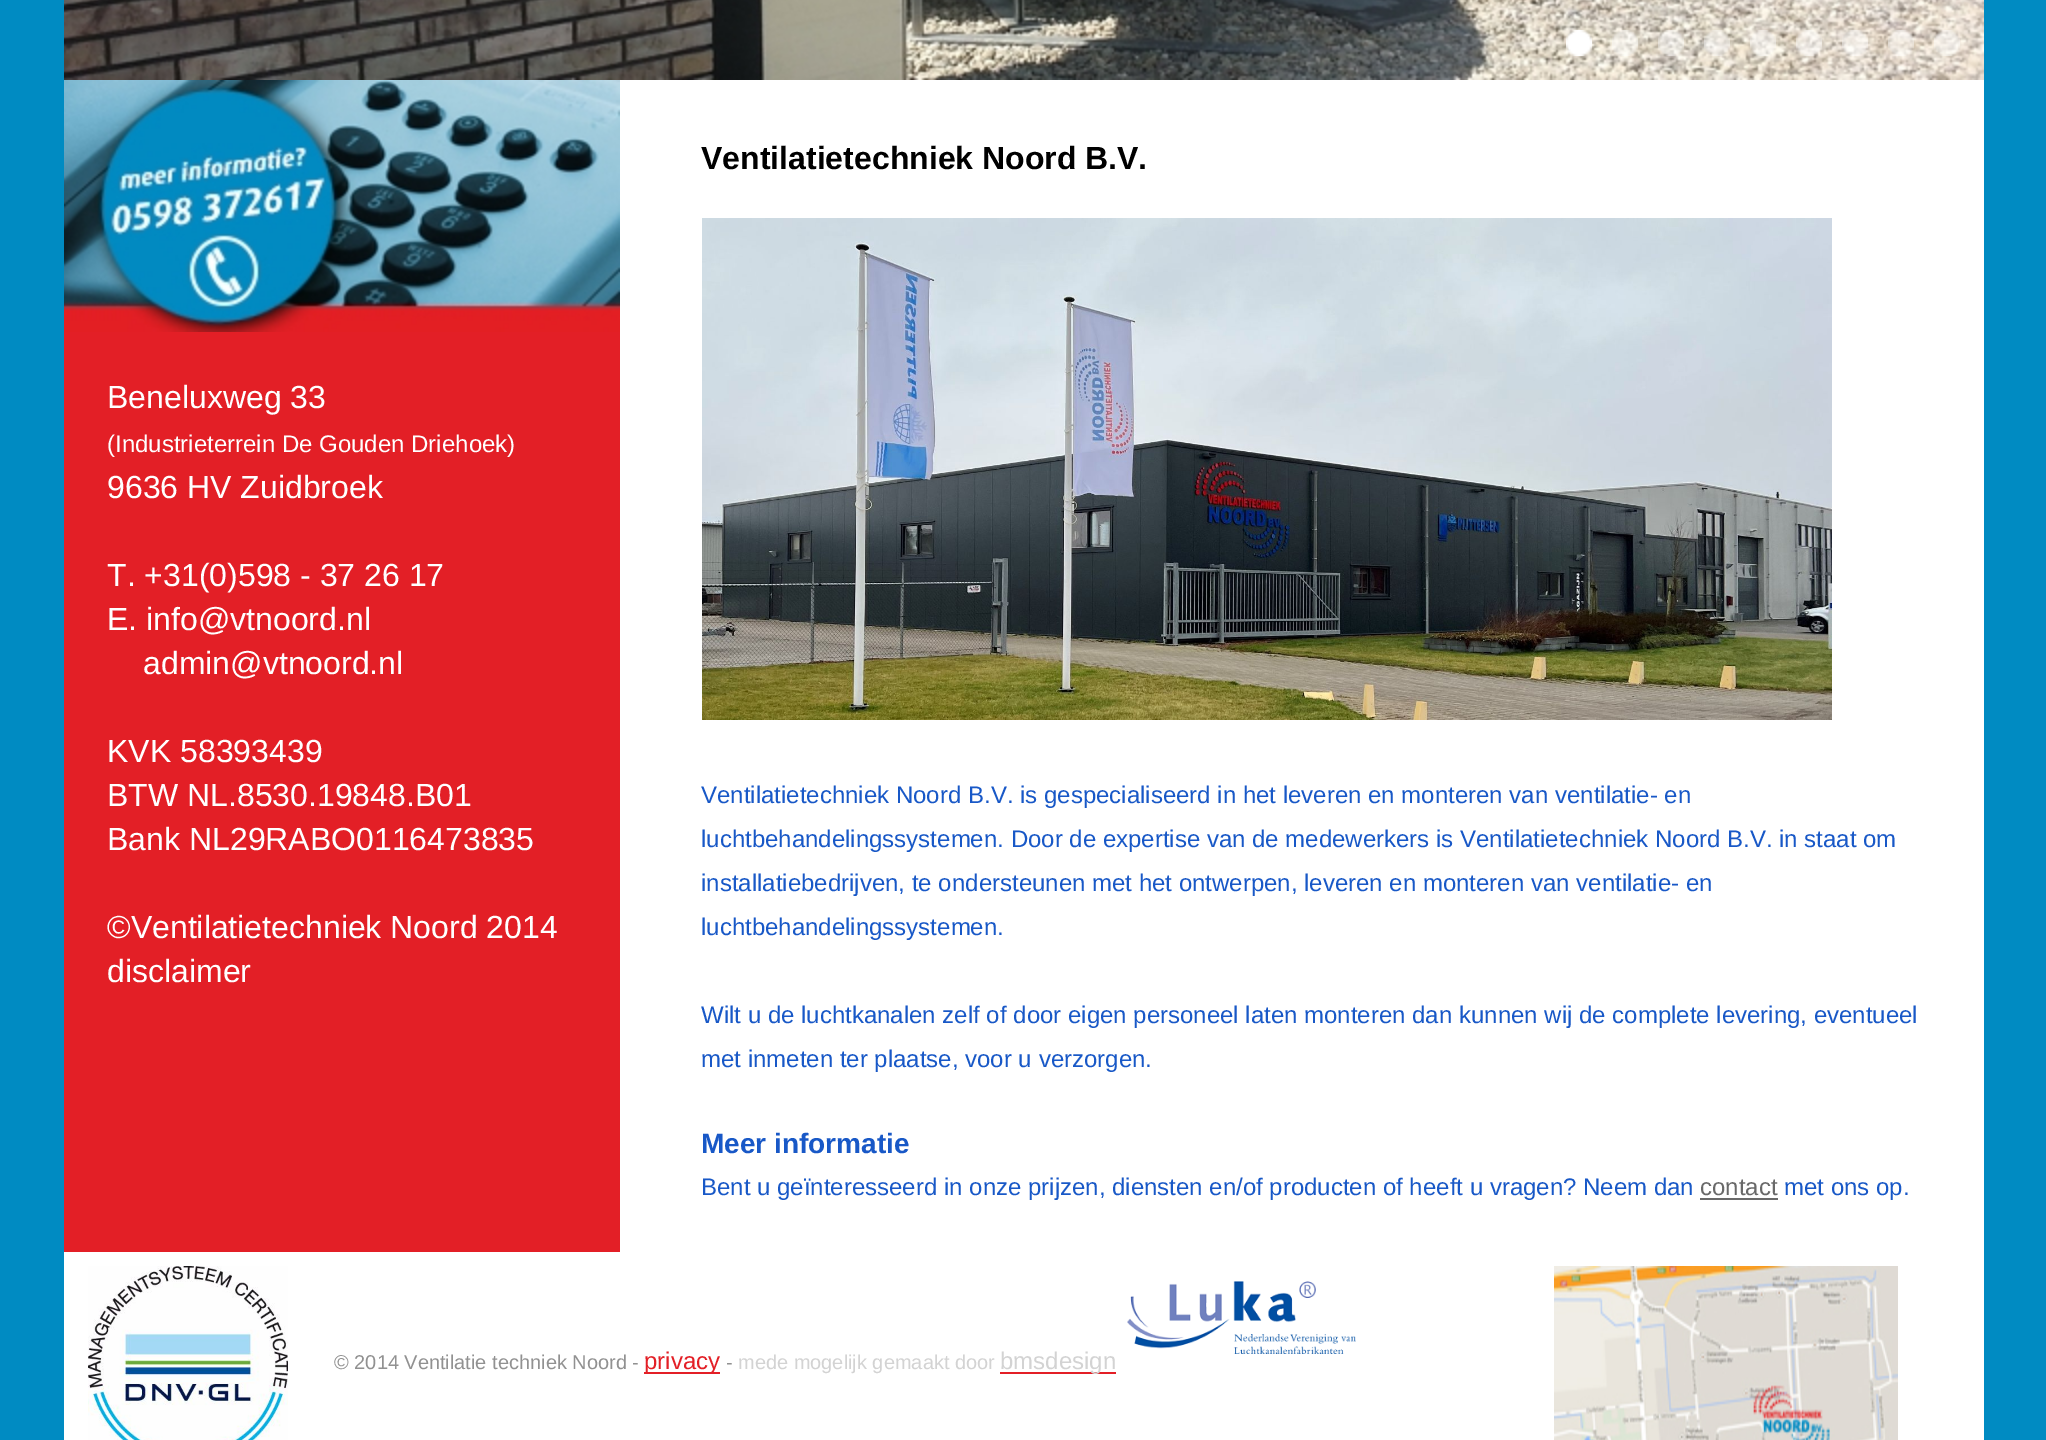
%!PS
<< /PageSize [2046 1440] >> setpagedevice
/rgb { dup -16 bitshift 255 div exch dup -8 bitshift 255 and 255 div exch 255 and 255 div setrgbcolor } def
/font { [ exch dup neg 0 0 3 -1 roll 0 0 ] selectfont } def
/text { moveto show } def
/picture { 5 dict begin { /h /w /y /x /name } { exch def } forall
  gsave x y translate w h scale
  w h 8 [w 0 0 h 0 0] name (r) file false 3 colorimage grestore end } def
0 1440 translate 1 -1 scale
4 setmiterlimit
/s1 { /LiberationSans-Bold 32 font 16#000000 rgb } def
/s2 { /LiberationSans-Regular 24 font 16#1858C7 rgb } def
/s3 { /LiberationSans-Bold 28 font 16#1858C7 rgb } def
/s4 { /LiberationSans-Regular 24 font 16#696969 rgb } def
/s5 { /LiberationSans-Regular 32 font 16#FFFFFF rgb } def
/s6 { /LiberationSans-Regular 24 font 16#FFFFFF rgb } def
/s7 { /LiberationSans-Regular 20 font 16#919191 rgb } def
/s8 { /LiberationSans-Regular 24 font 16#E31F26 rgb } def
/s9 { /LiberationSans-Regular 20 font 16#D3D3D3 rgb } def
/s10 { /LiberationSans-Regular 24 font 16#D3D3D3 rgb } def
16#008BC2 rgb
0 0 2046 1440 rectfill
(pic1.raw) 64 0 1920 80 picture
(pic2.raw) 1566 30 26 26 picture
(pic3.raw) 1612 30 26 26 picture
(pic4.raw) 1658 30 26 26 picture
(pic5.raw) 1704 30 26 26 picture
(pic6.raw) 1750 30 26 26 picture
(pic7.raw) 1796 30 26 26 picture
(pic8.raw) 1842 30 26 26 picture
(pic9.raw) 1888 30 26 26 picture
(pic10.raw) 1934 30 26 26 picture
16#FFFFFF rgb
620 80 1364 1172 rectfill
16#E31F26 rgb
64 332 556 920 rectfill
s1
(Ventilatietechniek Noord B.V.) 701 169 text
(pic11.raw) 702 218 1130 502 picture
s2
(Ventilatietechniek Noord B.V. is gespecialiseerd in het leveren en monteren van ventilatie- en) 701 803 text
(luchtbehandelingssystemen. Door de expertise van de medewerkers is Ventilatietechniek Noord B.V. in staat om) 701 847 text
(installatiebedrijven, te ondersteunen met het ontwerpen, leveren en monteren van ventilatie- en) 701 891 text
(luchtbehandelingssystemen.) 701 935 text
(Wilt u de luchtkanalen zelf of door eigen personeel laten monteren dan kunnen wij de complete levering, eventueel) 701 1023 text
(met inmeten ter plaatse, voor u verzorgen.) 701 1067 text
s3
(Meer informatie) 701 1153 text
s2
(Bent u geïnteresseerd in onze prijzen, diensten en/of producten of heeft u vragen? Neem dan) 701 1195 text
s4
(contact) 1700 1195 text
1700 1198 78 2 rectfill
s2
(met ons op.) 1784 1195 text
(pic12.raw) 64 80 556 252 picture
s5
(Beneluxweg 33) 107 408 text
s6
(\(Industrieterrein De Gouden Driehoek\)) 107 452 text
s5
(9636 HV Zuidbroek) 107 498 text
(T. +31\(0\)598 - 37 26 17) 107 586 text
(E. info@vtnoord.nl) 107 630 text
(admin@vtnoord.nl) 143 674 text
(KVK 58393439) 107 762 text
(BTW NL.8530.19848.B01) 107 806 text
(Bank NL29RABO0116473835) 107 850 text
(©Ventilatietechniek Noord 2014) 107 938 text
(disclaimer) 107 982 text
64 1252 1920 188 rectfill
(pic13.raw) 88 1266 200 174 picture
(pic14.raw) 1127 1281 229 73 picture
s7
(© 2014 Ventilatie techniek Noord -) 334 1369 text
16#E31F26 rgb
644 1372 76 2 rectfill
s8
(privacy) 644 1369 text
s7
(-) 726 1369 text
s9
(mede mogelijk gemaakt door) 738 1369 text
16#E31F26 rgb
1000 1372 116 2 rectfill
s10
(bmsdesign) 1000 1369 text
(pic15.raw) 1554 1266 344 174 picture
showpage
